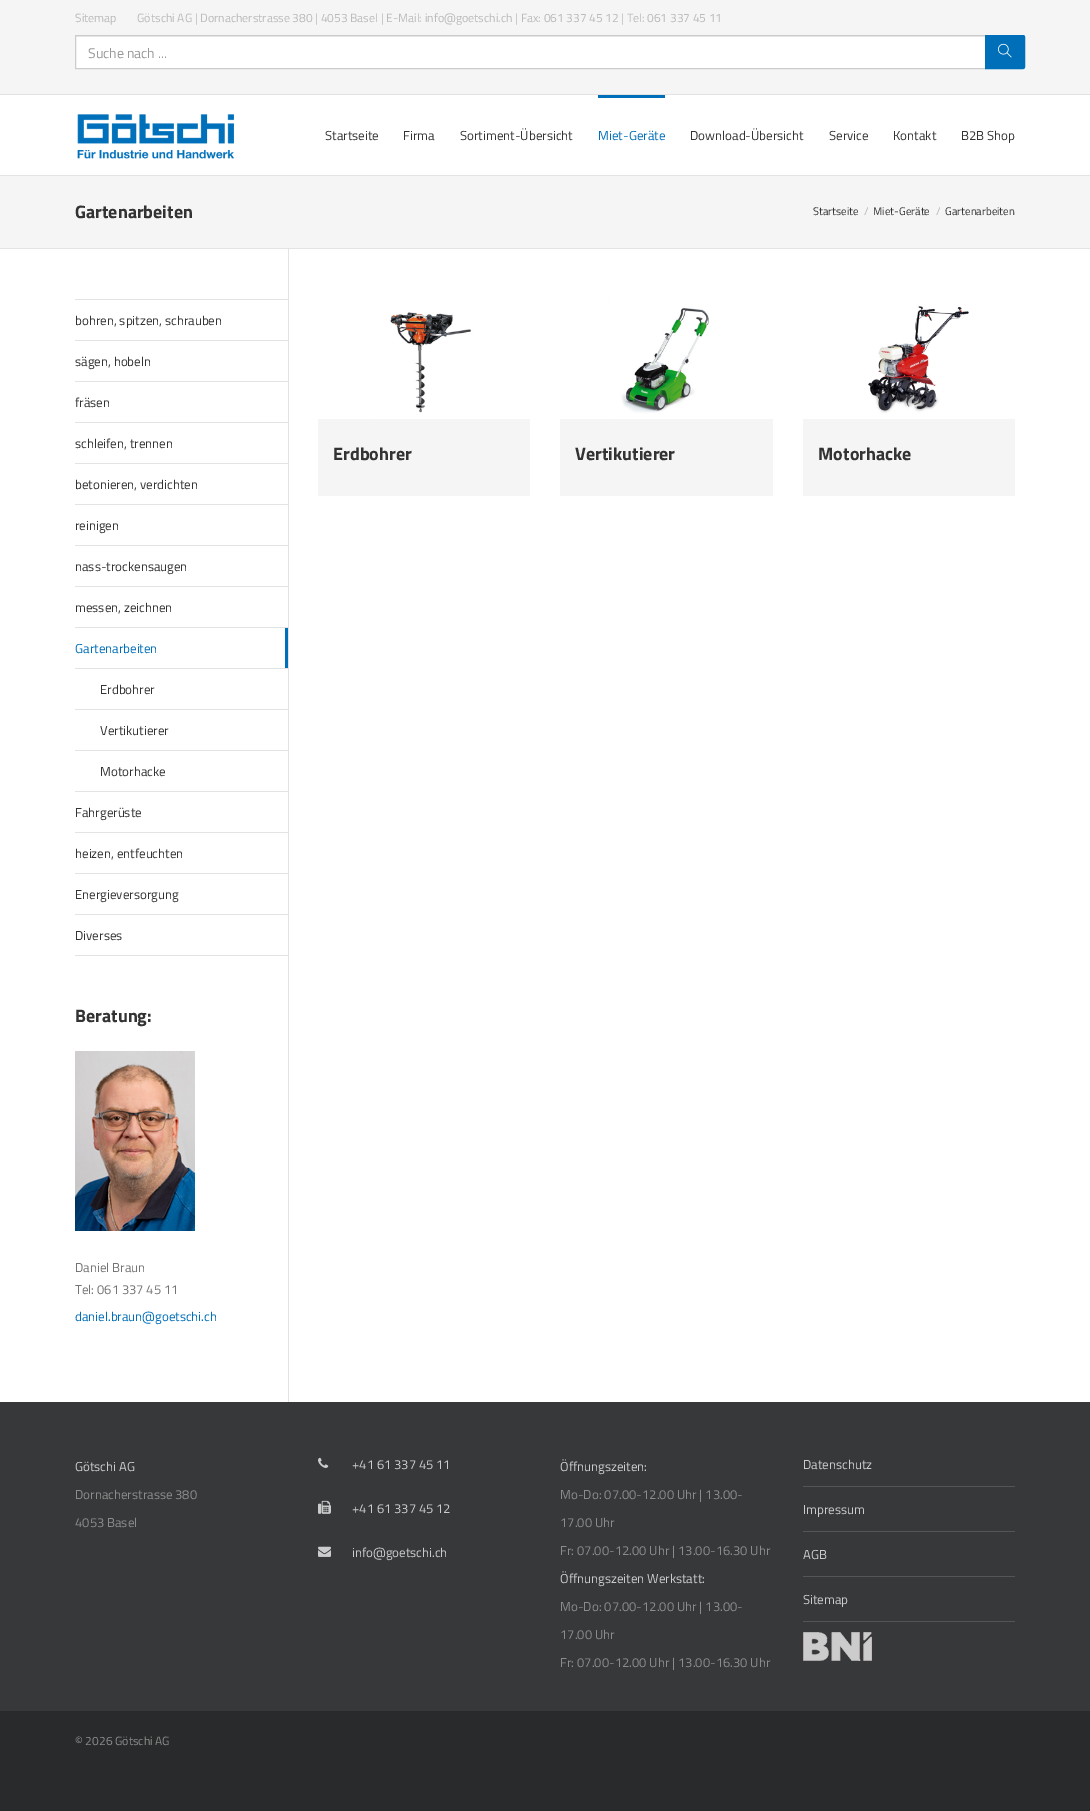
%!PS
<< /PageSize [1090 1811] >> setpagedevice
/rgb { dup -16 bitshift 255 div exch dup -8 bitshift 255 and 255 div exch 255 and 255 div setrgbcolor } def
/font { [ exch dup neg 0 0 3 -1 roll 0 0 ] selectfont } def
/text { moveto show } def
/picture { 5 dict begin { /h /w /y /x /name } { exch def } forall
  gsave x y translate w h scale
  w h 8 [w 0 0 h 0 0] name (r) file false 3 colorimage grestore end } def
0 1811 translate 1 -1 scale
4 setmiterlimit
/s1 { /TitilliumWeb-Regular 12 font 16#BBBBBB rgb } def
/s2 { /TitilliumWeb-Regular 14 font 16#999999 rgb } def
/s3 { /TitilliumWeb-Regular 13 font 16#333333 rgb } def
/s4 { /TitilliumWeb-Regular 13 font 16#006FB9 rgb } def
/s5 { /TitilliumWeb-Bold 18 font 16#333333 rgb } def
/s6 { /TitilliumWeb-Regular 11 font 16#333333 rgb } def
/s7 { /TitilliumWeb-Regular 11 font 16#B5B5B5 rgb } def
/s8 { /TitilliumWeb-Regular 13 font 16#747474 rgb } def
/s9 { /TitilliumWeb-Regular 13 font 16#CCCCCC rgb } def
/s10 { /TitilliumWeb-Regular 13 font 16#8C8C8C rgb } def
/s11 { /TitilliumWeb-Regular 12 font 16#8C8C8C rgb } def
16#FFFFFF rgb
0 0 1090 1811 rectfill
16#F5F5F5 rgb
0 0 1090 94 rectfill
16#E3E3E3 rgb
0 94 1090 1 rectfill
s1
(Sitemap) 75 22 text
(Götschi AG | Dornacherstrasse 380 | 4053 Basel | E-Mail: info@goetschi.ch | Fax: 061 337 45 12 | Tel: 061 337 45 11) 137 22 text
16#FFFFFF rgb
76 37 909 31 rectfill
16#ECECEC rgb
76 36 909 1 rectfill
16#CCCCCC rgb
75.5 35.5 910 33 rectstroke
s2
(Suche nach ...) 88 58 text
16#006FB9 rgb
985.5 35.5 moveto 1023 35.5 lineto 1024 35.5 1024.5 36 1024.5 37 curveto 1024.5 67 lineto 1024.5 68 1024 68.5 1023 68.5 curveto 985.5 68.5 lineto closepath gsave fill grestore
stroke
(pic1.raw) 998 43 14 15 picture
16#E3E3E3 rgb
0 175 1090 1 rectfill
(pic2.raw) 77 114 157 45 picture
s3
(Startseite) 325 140 text
(Firma) 403 140 text
(Sortiment-Übersicht) 460 140 text
16#006FB9 rgb
598 95 67 3 rectfill
(Miet-Geräte) 598 140 text
s3
(Download-Übersicht) 690 140 text
(Service) 829 140 text
(Kontakt) 893 140 text
(B2B Shop) 961 140 text
16#F5F5F5 rgb
0 176 1090 72 rectfill
16#E3E3E3 rgb
0 248 1090 1 rectfill
s5
(Gartenarbeiten) 75 218 text
s6
(Startseite) 813 215 text
s7
(/) 864 215 text
s6
(Miet-Geräte) 873 215 text
s7
(/) 936 215 text
s6
(Gartenarbeiten) 945 215 text
16#E3E3E3 rgb
75 299 213 1 rectfill
s3
(bohren, spitzen, schrauben) 75 325 text
16#E3E3E3 rgb
75 340 213 1 rectfill
s3
(sägen, hobeln) 75 366 text
16#E3E3E3 rgb
75 381 213 1 rectfill
s3
(fräsen) 75 407 text
16#E3E3E3 rgb
75 422 213 1 rectfill
s3
(schleifen, trennen) 75 448 text
16#E3E3E3 rgb
75 463 213 1 rectfill
s3
(betonieren, verdichten) 75 489 text
16#E3E3E3 rgb
75 504 213 1 rectfill
s3
(reinigen) 75 530 text
16#E3E3E3 rgb
75 545 213 1 rectfill
s3
(nass-trockensaugen) 75 571 text
16#E3E3E3 rgb
75 586 213 1 rectfill
s3
(messen, zeichnen) 75 612 text
16#E3E3E3 rgb
75 627 213 1 rectfill
16#006FB9 rgb
285 628 3 40 rectfill
(Gartenarbeiten) 75 653 text
16#E3E3E3 rgb
75 668 213 1 rectfill
s3
(Erdbohrer) 100 694 text
16#E3E3E3 rgb
75 709 213 1 rectfill
s3
(Vertikutierer) 100 735 text
16#E3E3E3 rgb
75 750 213 1 rectfill
s3
(Motorhacke) 100 776 text
16#E3E3E3 rgb
75 791 213 1 rectfill
s3
(Fahrgerüste) 75 817 text
16#E3E3E3 rgb
75 832 213 1 rectfill
s3
(heizen, entfeuchten) 75 858 text
16#E3E3E3 rgb
75 873 213 1 rectfill
s3
(Energieversorgung) 75 899 text
16#E3E3E3 rgb
75 914 213 1 rectfill
75 955 213 1 rectfill
s3
(Diverses) 75 940 text
16#E3E3E3 rgb
288 249 1 1153 rectfill
s5
(Beratung:) 75 1022 text
(pic3.raw) 75 1051 120 180 picture
s8
(Daniel Braun) 75 1272 text
(Tel: 061 337 45 11) 75 1294 text
s4
(daniel.braun@goetschi.ch) 75 1321 text
(pic4.raw) 318 299 212 120 picture
16#F5F5F5 rgb
318 419 212 77 rectfill
s5
(Erdbohrer) 333 460 text
(pic5.raw) 560 299 213 120 picture
16#F5F5F5 rgb
560 419 213 77 rectfill
s5
(Vertikutierer) 575 460 text
(pic6.raw) 803 299 212 120 picture
16#F5F5F5 rgb
803 419 212 77 rectfill
s5
(Motorhacke) 818 460 text
16#363839 rgb
0 1402 1090 309 rectfill
s9
(Götschi AG) 75 1471 text
s10
(Dornacherstrasse 380) 75 1499 text
(4053 Basel) 75 1527 text
(pic7.raw) 318 1457 11 11 picture
s9
(+41 61 337 45 11) 352 1469 text
(pic8.raw) 318 1500 13 14 picture
(+41 61 337 45 12) 352 1513 text
(pic9.raw) 318 1546 13 11 picture
(info@goetschi.ch) 352 1557 text
(Öffnungszeiten:) 560 1471 text
s10
(Mo-Do: 07.00-12.00 Uhr | 13.00-) 560 1499 text
(17.00 Uhr) 560 1527 text
(Fr: 07.00-12.00 Uhr | 13.00-16.30 Uhr) 560 1555 text
s9
(Öffnungszeiten Werkstatt:) 560 1583 text
s10
(Mo-Do: 07.00-12.00 Uhr | 13.00-) 560 1611 text
(17.00 Uhr) 560 1639 text
(Fr: 07.00-12.00 Uhr | 13.00-16.30 Uhr) 560 1667 text
16#555555 rgb
803 1486 212 1 rectfill
s9
(Datenschutz) 803 1469 text
16#555555 rgb
803 1531 212 1 rectfill
s9
(Impressum) 803 1514 text
16#555555 rgb
803 1576 212 1 rectfill
s9
(AGB) 803 1559 text
16#555555 rgb
803 1621 212 1 rectfill
s9
(Sitemap) 803 1604 text
(pic10.raw) 803 1632 69 29 picture
16#282A2B rgb
0 1711 1090 100 rectfill
s11
(© 2026 Götschi AG) 75 1745 text
showpage
